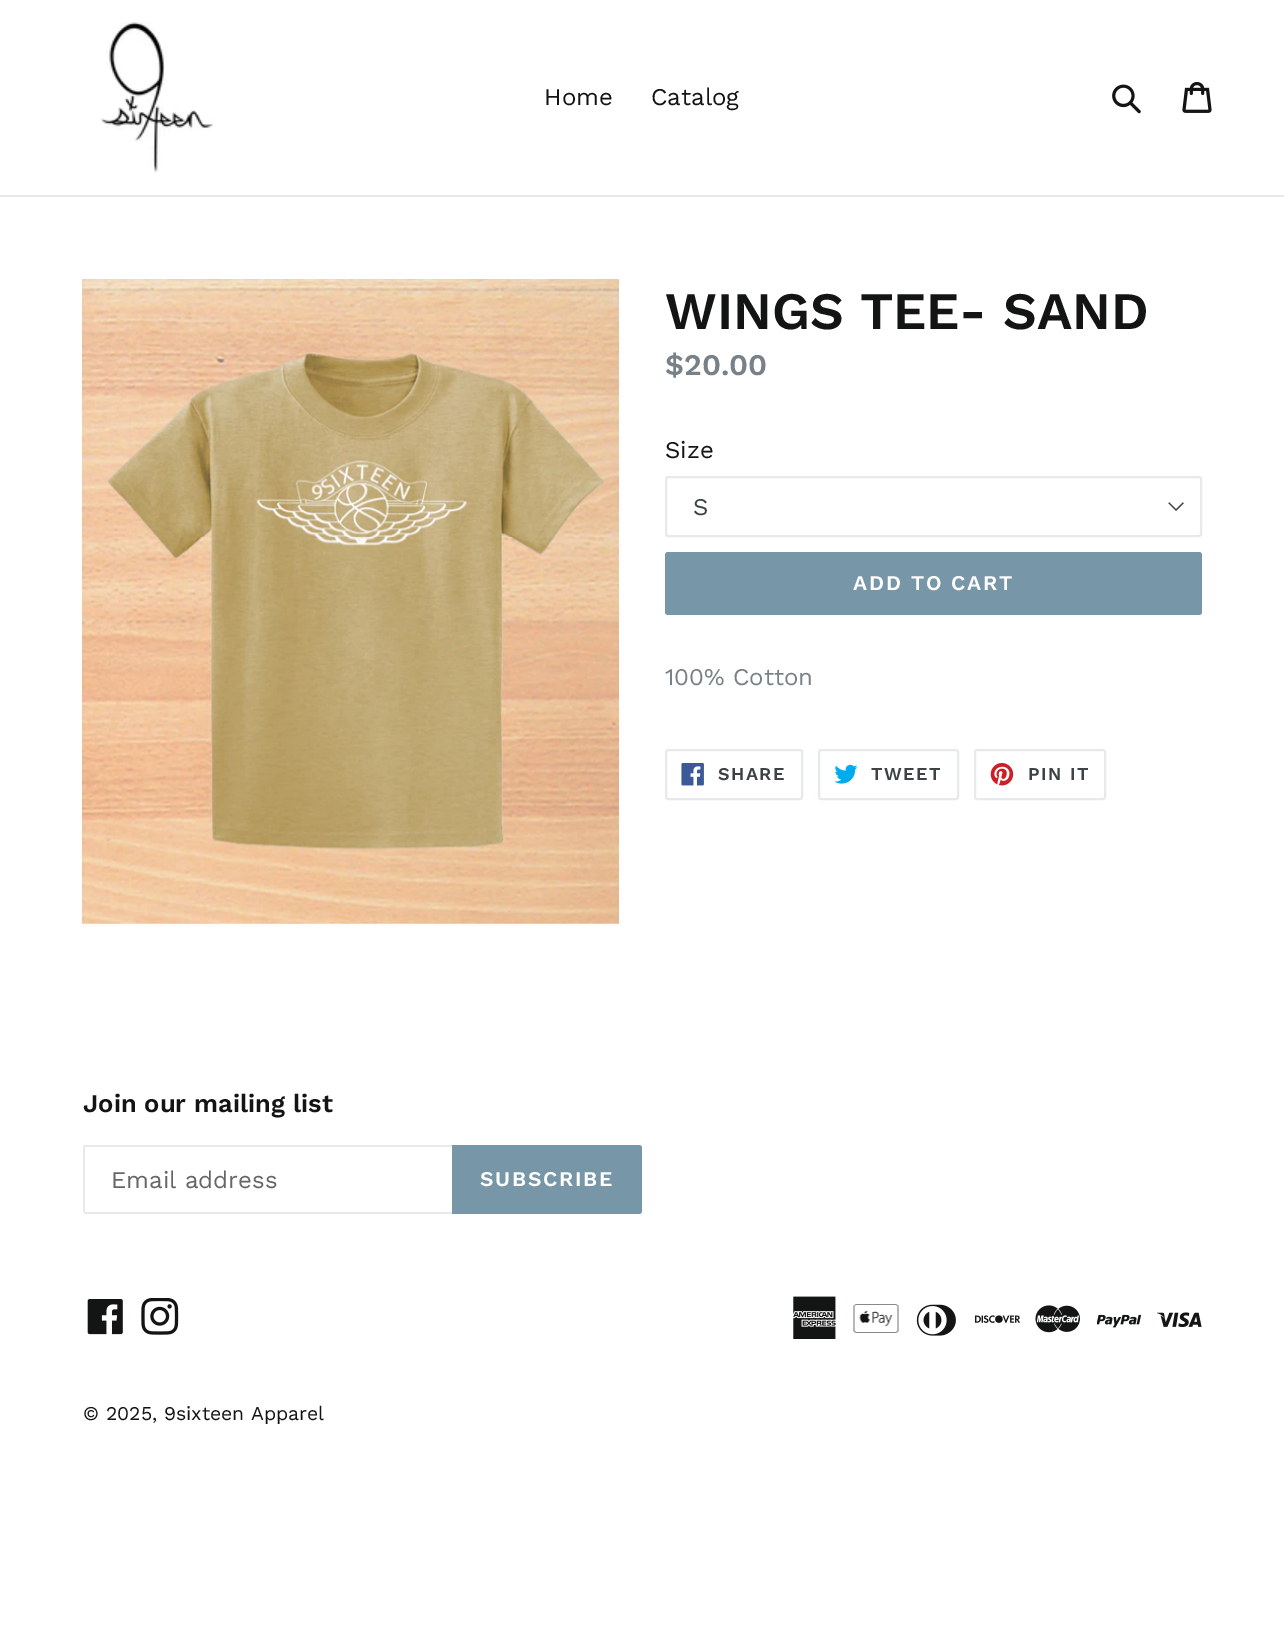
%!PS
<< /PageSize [1284 1628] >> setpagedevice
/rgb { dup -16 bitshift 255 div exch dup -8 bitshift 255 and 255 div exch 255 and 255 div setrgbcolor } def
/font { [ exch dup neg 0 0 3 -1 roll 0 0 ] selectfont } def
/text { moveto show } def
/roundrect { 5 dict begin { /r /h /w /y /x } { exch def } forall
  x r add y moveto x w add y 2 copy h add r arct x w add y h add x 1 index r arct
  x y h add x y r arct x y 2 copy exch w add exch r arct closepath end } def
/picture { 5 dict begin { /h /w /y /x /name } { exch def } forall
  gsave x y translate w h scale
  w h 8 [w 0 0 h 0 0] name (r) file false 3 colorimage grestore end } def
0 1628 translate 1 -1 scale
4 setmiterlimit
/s1 { /WorkSans-Regular 24 font 16#131414 rgb } def
/s2 { /WorkSans-SemiBold 52.5 font 16#131414 rgb } def
/s3 { /WorkSans-SemiBold 30 font 16#788188 rgb } def
/s4 { /WorkSans-Regular 24 font 16#3D4246 rgb } def
/s5 { /WorkSans-Regular 24 font 16#788188 rgb } def
/s6 { /WorkSans-SemiBold 25.5 font 16#131414 rgb } def
/s7 { /WorkSans-Regular 24 font 16#666666 rgb } def
/s8 { /WorkSans-Regular 19.5 font 16#131414 rgb } def
16#FFFFFF rgb
0 0 1284 1628 rectfill
16#E8E9EB rgb
0 195 1284 2 rectfill
(pic1.raw) 100 22 114 151 picture
s1
(Home) 544 105 text
(Catalog) 651 105 text
(pic2.raw) 1112 84 29 30 picture
(pic3.raw) 1182 81 30 32 picture
(pic4.raw) 82 279 537 645 picture
s2
(WINGS TEE- SAND) 665 329 text
s3
($20.00) 665 375 text
s1
(Size) 665 458 text
(pic5.raw) 1168 502 16 9 picture
16#E8E9EB rgb
2 setlinewidth
666 477 535 59 2 roundrect stroke
s4
(S) 693 515 text
16#7796A8 rgb
665 552 537 63 3 roundrect fill
/WorkSans-SemiBold 21 font
16#FFFFFF rgb
853 590 moveto 1.75 0 (ADD TO CART) ashow
s5
(100% Cotton) 665 685 text
16#E8E9EB rgb
666 750 136 49 2 roundrect stroke
(pic6.raw) 681 763 23 23 picture
/WorkSans-SemiBold 18 font
16#3D4246 rgb
718 780 moveto 1.5 0 (SHARE) ashow
16#E8E9EB rgb
819 750 139 49 2 roundrect stroke
(pic7.raw) 834 764 24 20 picture
16#3D4246 rgb
871 780 moveto 1.5 0 (TWEET) ashow
16#E8E9EB rgb
975 750 130 49 2 roundrect stroke
(pic8.raw) 990 763 24 23 picture
16#3D4246 rgb
1028 780 moveto 1.5 0 (PIN IT) ashow
s6
(Join our mailing list) 83 1112 text
16#E8E9EB rgb
84 1145 368 2 rectfill
84 1212 368 2 rectfill
83 1146 2 66 rectfill
s7
(Email address) 111 1188 text
16#7796A8 rgb
452 1145 moveto 639 1145 lineto 640.5 1145 642 1146.5 642 1148 curveto 642 1211 lineto 642 1212.5 640.5 1214 639 1214 curveto 452 1214 lineto closepath fill
/WorkSans-SemiBold 21 font
16#FFFFFF rgb
480 1186 moveto 1.75 0 (SUBSCRIBE) ashow
(pic9.raw) 87 1299 36 36 picture
(pic10.raw) 141 1298 38 37 picture
(pic11.raw) 793 1296 43 43 picture
(pic12.raw) 853 1304 46 29 picture
(pic13.raw) 916 1304 40 32 picture
(pic14.raw) 975 1315 45 8 picture
(pic15.raw) 1035 1305 45 28 picture
(pic16.raw) 1097 1314 45 14 picture
(pic17.raw) 1157 1312 45 15 picture
s8
(© 2025, 9sixteen Apparel) 83 1420 text
showpage
